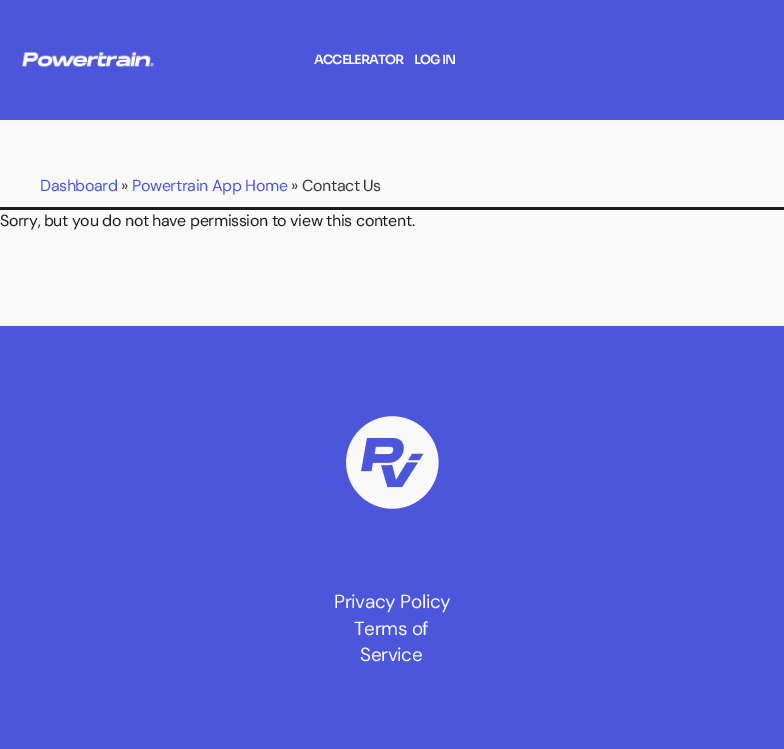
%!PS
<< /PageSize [784 749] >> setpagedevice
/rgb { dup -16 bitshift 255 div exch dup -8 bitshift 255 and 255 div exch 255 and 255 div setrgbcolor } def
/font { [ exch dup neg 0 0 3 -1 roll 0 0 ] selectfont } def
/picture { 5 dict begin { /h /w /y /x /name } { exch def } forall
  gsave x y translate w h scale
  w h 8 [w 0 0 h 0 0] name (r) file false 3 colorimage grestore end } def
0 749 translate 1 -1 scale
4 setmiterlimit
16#F9F9F9 rgb
0 0 784 749 rectfill
16#4C56DB rgb
0 0 784 120 rectfill
(pic1.raw) 21 52 134 16 picture
/Sora-SemiBold 12.75 font
16#FFFFFF rgb
314 64 moveto -0.9 0 (ACCELERATOR) ashow
414 64 moveto -0.9 0 (LOG IN) ashow
16#1C1E1B rgb
0 207 784 3 rectfill
/DMSans-Regular 16 font
16#4C56DB rgb
40 191 moveto -0.4 0 (Dashboard) ashow
16#393939 rgb
121 191 moveto -0.4 0 (») ashow
16#4C56DB rgb
132 191 moveto -0.4 0 (Powertrain App Home) ashow
16#393939 rgb
291 191 moveto -0.4 0 (» Contact Us) ashow
16#1C1E1B rgb
0 226 moveto -0.4 0 (Sorry, but you do not have permission to view this content.) ashow
16#4C56DB rgb
0 326 784 423 rectfill
(pic2.raw) 346 416 93 93 picture
/DMSans-Regular 19 font
16#F9F9F9 rgb
334 608 moveto -0.4 0 (Privacy Policy) ashow
354 635 moveto -0.4 0 (Terms of) ashow
360 661 moveto -0.4 0 (Service) ashow
showpage
